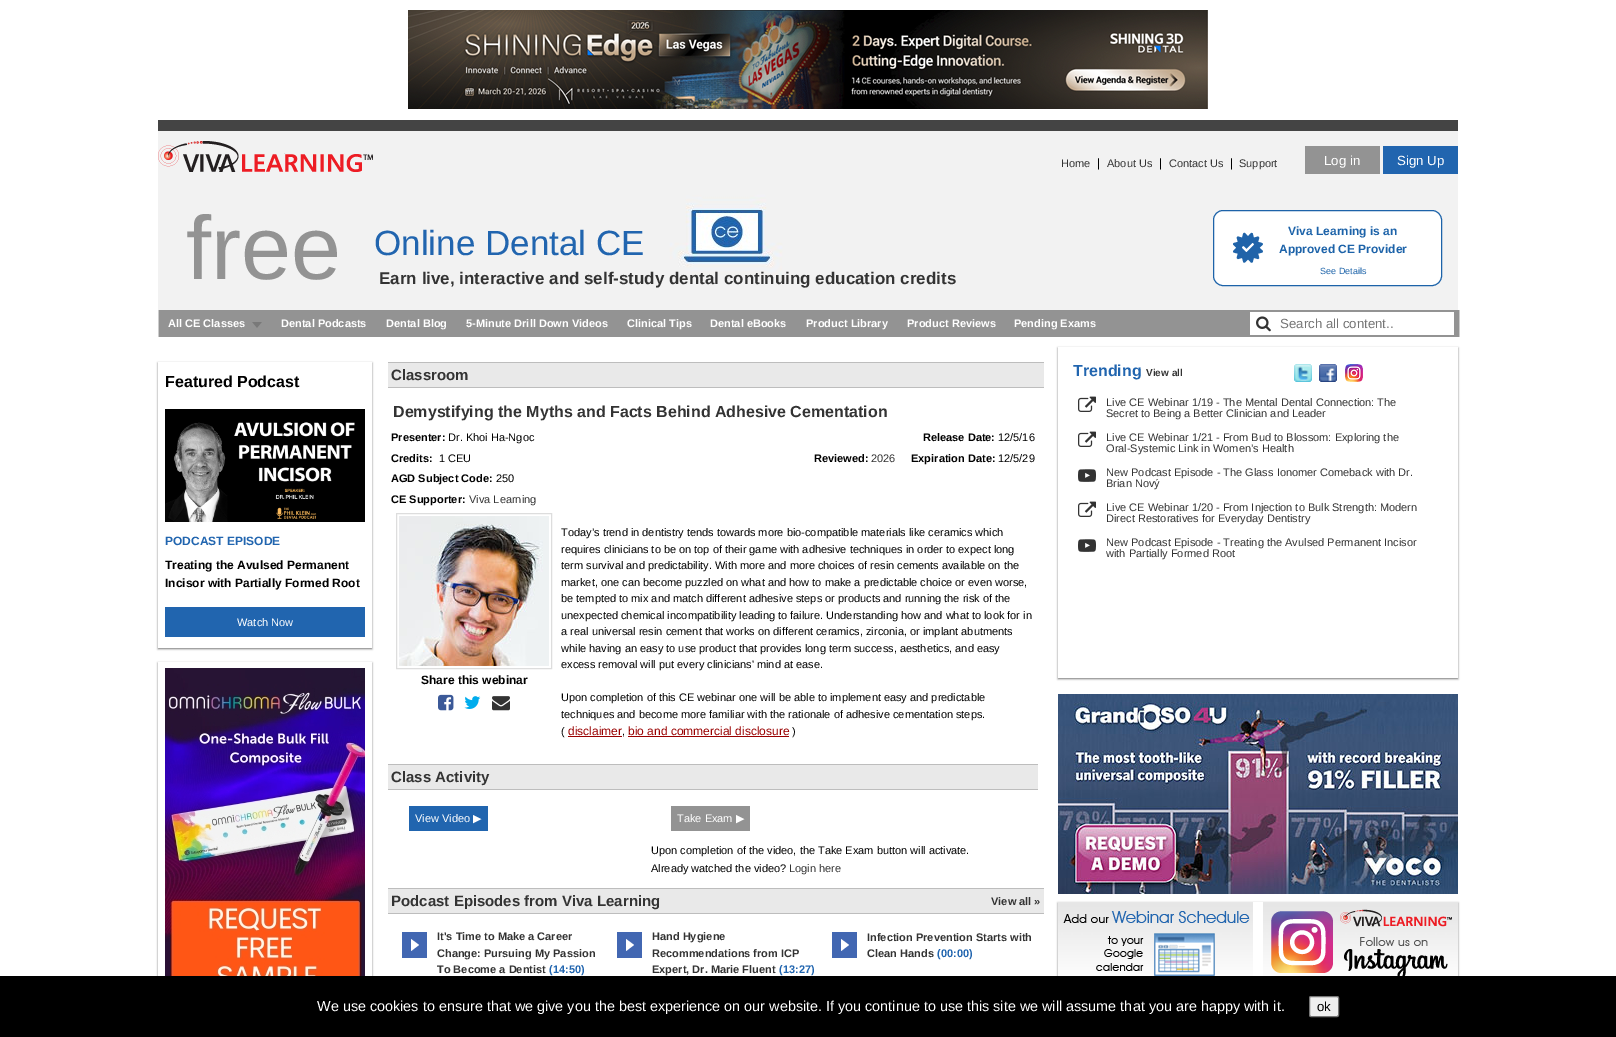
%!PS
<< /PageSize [1616 1037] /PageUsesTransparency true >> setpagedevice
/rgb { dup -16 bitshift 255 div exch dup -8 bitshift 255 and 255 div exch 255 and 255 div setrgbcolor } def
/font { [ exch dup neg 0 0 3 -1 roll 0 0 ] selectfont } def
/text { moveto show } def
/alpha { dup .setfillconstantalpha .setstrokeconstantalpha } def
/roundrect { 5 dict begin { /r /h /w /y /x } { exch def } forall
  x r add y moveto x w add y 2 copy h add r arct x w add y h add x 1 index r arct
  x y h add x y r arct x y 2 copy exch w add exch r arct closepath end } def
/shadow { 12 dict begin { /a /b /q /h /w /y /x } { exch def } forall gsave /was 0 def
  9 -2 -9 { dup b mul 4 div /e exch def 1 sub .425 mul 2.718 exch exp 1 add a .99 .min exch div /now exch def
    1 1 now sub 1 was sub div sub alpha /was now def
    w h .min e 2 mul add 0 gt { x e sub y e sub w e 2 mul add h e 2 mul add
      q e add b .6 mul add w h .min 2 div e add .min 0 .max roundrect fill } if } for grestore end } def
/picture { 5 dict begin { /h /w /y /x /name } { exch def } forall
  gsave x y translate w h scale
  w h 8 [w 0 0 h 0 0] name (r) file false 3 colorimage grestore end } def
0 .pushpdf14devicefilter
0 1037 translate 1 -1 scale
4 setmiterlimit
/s1 { /LiberationSans-Regular 11 font 16#333333 rgb } def
/s2 { /LiberationSans-Regular 12 font 16#000000 rgb } def
/s3 { /LiberationSans-Regular 13.25 font 16#FFFFFF rgb } def
/s4 { /LiberationSans-Regular 90 font 16#939393 rgb } def
/s5 { /LiberationSans-Regular 35 font 16#2165AF rgb } def
/s6 { /LiberationSans-Bold 12 font 16#1D63A9 rgb } def
/s7 { /LiberationSans-Regular 9 font 16#1D63A9 rgb } def
/s8 { /LiberationSans-Bold 17 font 16#333333 rgb } def
/s9 { /LiberationSans-Bold 11 font 16#FFFFFF rgb } def
/s10 { /LiberationSans-Regular 13.25 font 16#757575 rgb } def
/s11 { /LiberationSans-Bold 16 font 16#000000 rgb } def
/s12 { /LiberationSans-Bold 12 font 16#2165AF rgb } def
/s13 { /LiberationSans-Bold 12 font 16#000000 rgb } def
/s14 { /LiberationSans-Regular 11 font 16#FFFFFF rgb } def
/s15 { /LiberationSans-Bold 15 font 16#333333 rgb } def
/s16 { /LiberationSans-Bold 16 font 16#333333 rgb } def
/s17 { /LiberationSans-Bold 11 font 16#000000 rgb } def
/s18 { /LiberationSans-Regular 11 font 16#000000 rgb } def
/s19 { /LiberationSans-Regular 12 font 16#990000 rgb } def
/s20 { /DejaVuSans-Regular 11 font 16#FFFFFF rgb } def
/s21 { /LiberationSans-Bold 11 font 16#333333 rgb } def
/s22 { /LiberationSans-Bold 11 font 16#2165AF rgb } def
/s23 { /LiberationSans-Bold 16 font 16#2165AF rgb } def
/s24 { /LiberationSans-Bold 10 font 16#333333 rgb } def
/s25 { /LiberationSans-Regular 14.4 font 16#FFFFFF rgb } def
/s26 { /LiberationSans-Regular 13.25 font 16#000000 rgb } def
16#FFFFFF rgb
0 0 1616 1037 rectfill
(pic1.raw) 408 10 800 99 picture
16#444444 rgb
158 120 1300 11 rectfill
(pic2.raw) 158 131 1300 179 picture
(pic3.raw) 158 141 215 31 picture
s1
(Home) 1061 167 text
s2
(|) 1097 167 text
s1
(About Us) 1107 167 text
s2
(|) 1159 167 text
s1
(Contact Us) 1169 167 text
s2
(|) 1230 167 text
s1
(Support) 1239 167 text
16#939393 rgb
1305 146 75 28 rectfill
s3
(Log in) 1324 165 text
16#2165AF rgb
1383 146 75 28 rectfill
s3
(Sign Up) 1397 165 text
s4
(free) 186 279 text
s5
(Online Dental CE) 374 255 text
16#FFFFFF rgb
1213.5 210.5 228 75 9.5 roundrect gsave fill grestore
16#1D63A9 rgb
stroke
(pic4.raw) 1233 232 30 31 picture
s6
(Viva Learning is an) 1288 235 text
(Approved CE Provider) 1279 253 text
s7
(See Details) 1320 274 text
s8
(Earn live, interactive and self-study dental continuing education credits) 379 284 text
16#939393 rgb
159 310 1300 27 rectfill
16#CCCCCC rgb
1459 310 1 27 rectfill
158 310 1 27 rectfill
(pic5.raw) 252 322 10 6 picture
s9
(All CE Classes) 168 327 text
(Dental Podcasts) 281 327 text
(Dental Blog) 386 327 text
(5-Minute Drill Down Videos) 466 327 text
(Clinical Tips) 627 327 text
(Dental eBooks) 710 327 text
(Product Library) 806 327 text
(Product Reviews) 907 327 text
(Pending Exams) 1014 327 text
1250 312 204 23 rectfill
(pic6.raw) 1256 316 15 16 picture
s10
(Search all content..) 1280 328 text
gsave
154 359 moveto 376 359 lineto 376 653 lineto 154 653 lineto closepath 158 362 moveto 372 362 lineto 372 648 lineto 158 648 lineto closepath eoclip newpath
16#777777 rgb
158 363 214 286 0 1 1 shadow
grestore
s11
(Featured Podcast) 165 387 text
(pic7.raw) 165 409 200 113 picture
s12
(PODCAST EPISODE) 165 545 text
s13
(Treating the Avulsed Permanent) 165 569 text
(Incisor with Partially Formed Root) 165 587 text
16#2165AF rgb
165 607 200 30 rectfill
s14
(Watch Now) 237 626 text
gsave
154 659 moveto 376 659 lineto 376 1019 lineto 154 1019 lineto closepath 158 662 moveto 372 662 lineto 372 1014 lineto 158 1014 lineto closepath eoclip newpath
16#777777 rgb
158 663 214 352 0 1 1 shadow
grestore
(pic8.raw) 165 668 200 308 picture
16#E9E9E9 rgb
388 363 656 24 rectfill
16#BDBDBD rgb
388 362 656 1 rectfill
388 387 656 1 rectfill
s15
(Classroom) 391 380 text
s16
(Demystifying the Myths and Facts Behind Adhesive Cementation) 393 417 text
s17
(Presenter:) 391 441 text
s18
(Dr. Khoi Ha-Ngoc) 448 441 text
s17
(Release Date:) 923 441 text
s18
(12/5/16) 998 441 text
s17
(Credits:) 391 462 text
s18
(1 CEU) 439 462 text
s17
(Reviewed:) 814 462 text
s1
(2026) 871 462 text
s17
(Expiration Date:) 911 462 text
s18
(12/5/29) 998 462 text
s17
(AGD Subject Code:) 391 482 text
s18
(250) 496 482 text
s17
(CE Supporter:) 391 503 text
s1
(Viva Learning) 469 503 text
16#DDDDDD rgb
396.5 513.5 155 155 rectstroke
(pic9.raw) 399 516 150 150 picture
s13
(Share this webinar) 421 684 text
(pic10.raw) 438 694 16 17 picture
(pic11.raw) 464 696 17 13 picture
(pic12.raw) 492 696 18 15 picture
s18
(Today’s trend in dentistry tends towards more bio-compatible materials like ceramics which) 561 536 text
(requires clinicians to be on top of their game with adhesive techniques in order to expect long) 561 553 text
(term survival and predictability. With more and more choices of resin cements available on the) 561 569 text
(market, one can become puzzled on what and how to make a predictable choice or even worse,) 561 586 text
(be tempted to mix and match different adhesive steps or products and running the risk of the) 561 602 text
(unexpected chemical incompatibility leading to failure. Understanding how and what to look for in) 561 619 text
(a real universal resin cement that works on different ceramics, zirconia, or implant abutments) 561 635 text
(while having an easy to use product that provides long term success, aesthetics, and easy) 561 652 text
(excess removal will put every clinicians' mind at ease.) 561 668 text
(Upon completion of this CE webinar one will be able to implement easy and predictable) 561 701 text
(techniques and become more familiar with the rationale of adhesive cementation steps.) 561 718 text
(\() 561 735 text
s19
(disclaimer) 568 735 text
s18
(,) 622 735 text
16#990000 rgb
568 736 54 1 rectfill
628 736 161 1 rectfill
s19
(bio and commercial disclosure) 628 735 text
s18
(\)) 792 735 text
16#E9E9E9 rgb
388 765 650 24 rectfill
16#BDBDBD rgb
388 764 650 1 rectfill
388 789 650 1 rectfill
s15
(Class Activity) 391 782 text
16#2165AF rgb
409 806 79 25 rectfill
s14
(View Video) 415 822 text
s20
(▶) 473 822 text
16#939393 rgb
671 806 79 25 rectfill
s14
(Take Exam) 677 822 text
s20
(▶) 736 822 text
s18
(Upon completion of the video, the Take Exam button will activate.) 651 854 text
(Already watched the video?) 651 872 text
s1
(Login here) 789 872 text
16#E9E9E9 rgb
388 889 656 24 rectfill
16#BDBDBD rgb
388 888 656 1 rectfill
388 913 656 1 rectfill
s15
(Podcast Episodes from Viva Learning) 391 906 text
s21
(View all ») 991 905 text
(pic13.raw) 402 932 25 26 picture
(It's Time to Make a Career) 437 940 text
(Change: Pursuing My Passion) 437 957 text
(To Become a Dentist) 437 973 text
s22
(\(14:50\)) 549 973 text
(pic13.raw) 617 932 25 26 picture
s21
(Hand Hygiene) 652 940 text
(Recommendations from ICP) 652 957 text
(Expert, Dr. Marie Fluent) 652 973 text
s22
(\(13:27\)) 779 973 text
(pic13.raw) 832 932 25 26 picture
s21
(Infection Prevention Starts with) 867 941 text
(Clean Hands) 867 957 text
s22
(\(00:00\)) 937 957 text
gsave
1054 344 moveto 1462 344 lineto 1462 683 lineto 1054 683 lineto closepath 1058 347 moveto 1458 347 lineto 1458 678 lineto 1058 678 lineto closepath eoclip newpath
16#777777 rgb
1058 348 400 331 0 1 1 shadow
grestore
s23
(Trending) 1073 376 text
s24
(View all) 1146 376 text
(pic14.raw) 1294 364 18 18 picture
(pic15.raw) 1319 364 18 18 picture
(pic16.raw) 1345 364 18 18 picture
(pic17.raw) 1078 396 18 16 picture
s1
(Live CE Webinar 1/19 - The Mental Dental Connection: The) 1106 406 text
(Secret to Being a Better Clinician and Leader) 1106 417 text
(pic17.raw) 1078 431 18 16 picture
(Live CE Webinar 1/21 - From Bud to Blossom: Exploring the) 1106 441 text
(Oral-Systemic Link in Women’s Health) 1106 452 text
(pic18.raw) 1078 469 18 13 picture
(New Podcast Episode - The Glass Ionomer Comeback with Dr.) 1106 476 text
(Brian Nový) 1106 487 text
(pic17.raw) 1078 501 18 16 picture
(Live CE Webinar 1/20 - From Injection to Bulk Strength: Modern) 1106 511 text
(Direct Restoratives for Everyday Dentistry) 1106 522 text
(pic18.raw) 1078 539 18 13 picture
(New Podcast Episode - Treating the Avulsed Permanent Incisor) 1106 546 text
(with Partially Formed Root) 1106 557 text
(pic19.raw) 1058 694 400 200 picture
gsave
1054 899 moveto 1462 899 lineto 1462 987 lineto 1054 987 lineto closepath 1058 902 moveto 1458 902 lineto 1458 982 lineto 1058 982 lineto closepath eoclip newpath
16#777777 rgb
1058 903 400 80 0 1 1 shadow
grestore
(pic20.raw) 1058 902 195 74 picture
(pic21.raw) 1263 902 195 74 picture
16#000000 rgb
0 976 1616 61 rectfill
s25
(We use cookies to ensure that we give you the best experience on our website. If you continue to use this site we will assume that you are happy with it.) 317 1011 text
16#EFEFEF rgb
1309.5 996.5 29 20 1.5 roundrect gsave fill grestore
16#767676 rgb
stroke
s26
(ok) 1317 1011 text
.poppdf14devicefilter showpage
